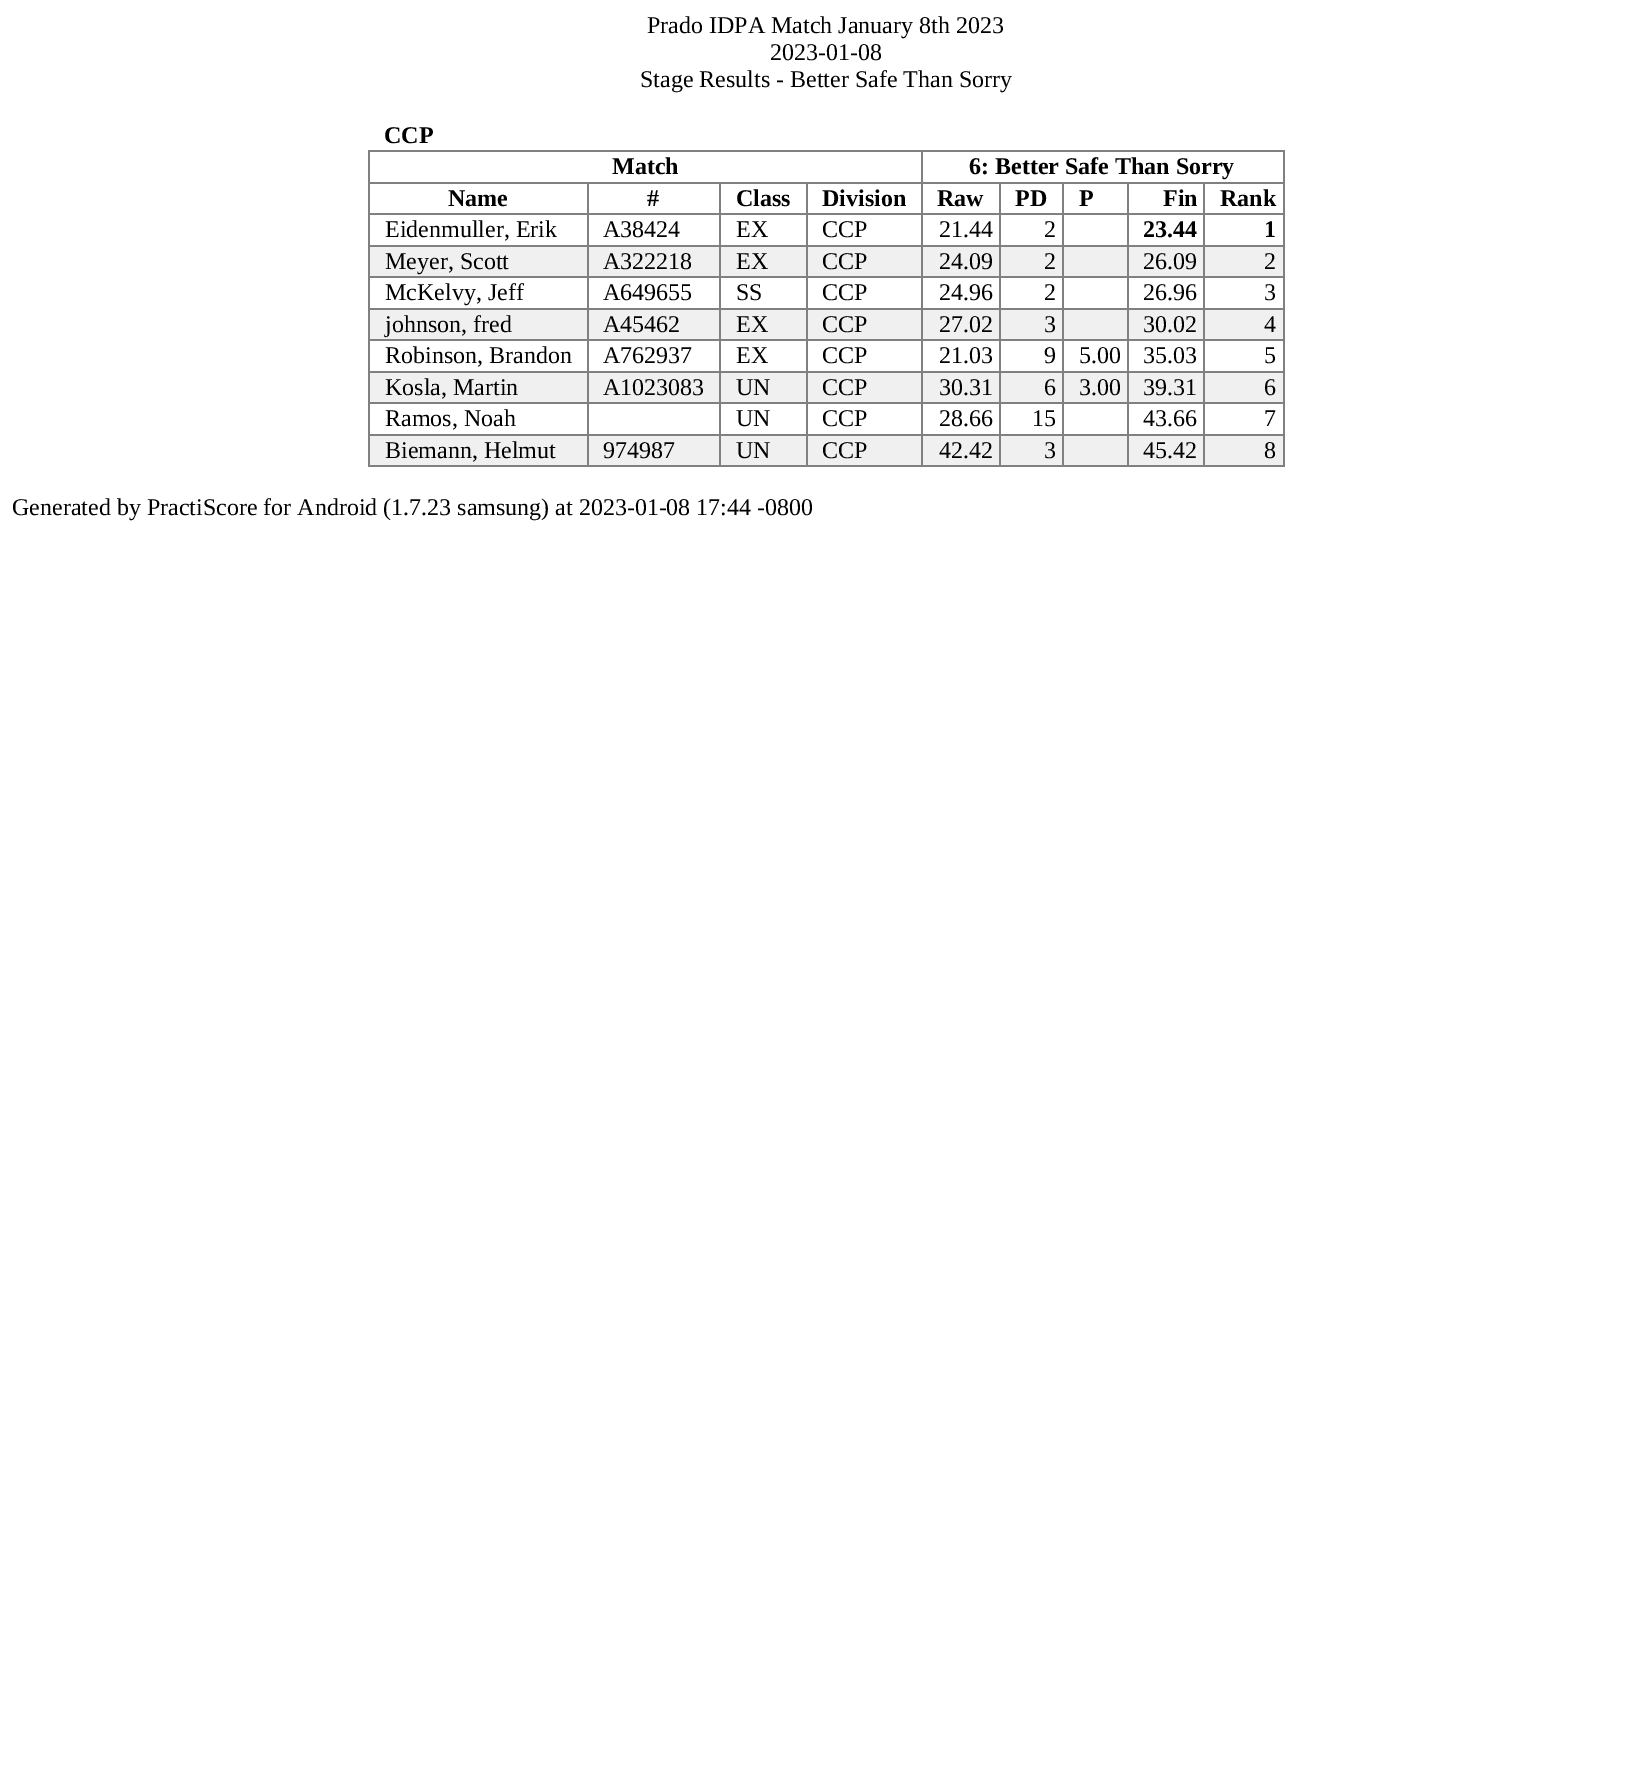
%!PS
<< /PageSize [1651 1772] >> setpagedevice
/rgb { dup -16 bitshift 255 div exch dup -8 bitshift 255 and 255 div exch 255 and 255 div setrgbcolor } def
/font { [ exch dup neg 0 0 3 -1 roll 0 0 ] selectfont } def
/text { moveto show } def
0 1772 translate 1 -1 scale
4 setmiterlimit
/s1 { /LiberationSerif-Regular 24 font 16#000000 rgb } def
/s2 { /LiberationSerif-Bold 24 font 16#000000 rgb } def
16#FFFFFF rgb
0 0 1651 1772 rectfill
s1
(Prado IDPA Match January 8th 2023) 647 33 text
(2023-01-08) 770 60 text
(Stage Results - Better Safe Than Sorry) 640 87 text
s2
(CCP) 384 143 text
16#808080 rgb
921 150 363 2 rectfill
1203 182 81 2 rectfill
1203 213 81 2 rectfill
1203 245 81 2 rectfill
16#F0F0F0 rgb
370 247 913 29 rectfill
16#808080 rgb
1203 276 81 2 rectfill
1203 308 81 2 rectfill
16#F0F0F0 rgb
370 310 913 29 rectfill
16#808080 rgb
1203 339 81 2 rectfill
1203 371 81 2 rectfill
16#F0F0F0 rgb
370 373 913 29 rectfill
16#808080 rgb
1203 402 81 2 rectfill
1203 434 81 2 rectfill
16#F0F0F0 rgb
370 436 913 29 rectfill
16#808080 rgb
1283 434 2 33 rectfill
1203 465 81 2 rectfill
1203 434 2 33 rectfill
1127 434 78 2 rectfill
1203 402 2 33 rectfill
1127 402 78 2 rectfill
1203 371 2 33 rectfill
1127 371 78 2 rectfill
1203 339 2 33 rectfill
1127 339 78 2 rectfill
1203 308 2 33 rectfill
1127 308 78 2 rectfill
1203 276 2 33 rectfill
1127 276 78 2 rectfill
1203 245 2 33 rectfill
1127 245 78 2 rectfill
1203 213 2 33 rectfill
1127 213 78 2 rectfill
1203 182 2 33 rectfill
1127 182 78 2 rectfill
1127 465 78 2 rectfill
1127 434 2 33 rectfill
1062 434 66 2 rectfill
1127 402 2 33 rectfill
1062 402 66 2 rectfill
1127 371 2 33 rectfill
1062 371 66 2 rectfill
1127 339 2 33 rectfill
1062 339 66 2 rectfill
1127 308 2 33 rectfill
1062 308 66 2 rectfill
1127 276 2 33 rectfill
1062 276 66 2 rectfill
1127 245 2 33 rectfill
1062 245 66 2 rectfill
1127 213 2 33 rectfill
1062 213 66 2 rectfill
1127 182 2 33 rectfill
1062 182 66 2 rectfill
1062 465 66 2 rectfill
1062 434 2 33 rectfill
999 434 65 2 rectfill
1062 402 2 33 rectfill
999 402 65 2 rectfill
1062 371 2 33 rectfill
999 371 65 2 rectfill
1062 339 2 33 rectfill
999 339 65 2 rectfill
1062 308 2 33 rectfill
999 308 65 2 rectfill
1062 276 2 33 rectfill
999 276 65 2 rectfill
1062 245 2 33 rectfill
999 245 65 2 rectfill
1062 213 2 33 rectfill
999 213 65 2 rectfill
1062 182 2 33 rectfill
999 182 65 2 rectfill
999 465 65 2 rectfill
999 434 2 33 rectfill
921 434 80 2 rectfill
999 402 2 33 rectfill
921 402 80 2 rectfill
999 371 2 33 rectfill
921 371 80 2 rectfill
999 339 2 33 rectfill
921 339 80 2 rectfill
999 308 2 33 rectfill
921 308 80 2 rectfill
999 276 2 33 rectfill
921 276 80 2 rectfill
999 245 2 33 rectfill
921 245 80 2 rectfill
999 213 2 33 rectfill
921 213 80 2 rectfill
999 182 2 33 rectfill
921 182 80 2 rectfill
921 465 80 2 rectfill
921 434 2 33 rectfill
806 434 117 2 rectfill
921 402 2 33 rectfill
806 402 117 2 rectfill
921 371 2 33 rectfill
806 371 117 2 rectfill
921 339 2 33 rectfill
806 339 117 2 rectfill
921 308 2 33 rectfill
806 308 117 2 rectfill
921 276 2 33 rectfill
806 276 117 2 rectfill
921 245 2 33 rectfill
806 245 117 2 rectfill
921 213 2 33 rectfill
806 213 117 2 rectfill
921 182 2 33 rectfill
806 182 117 2 rectfill
921 150 2 33 rectfill
368 150 555 2 rectfill
806 465 117 2 rectfill
806 434 2 33 rectfill
719 434 88 2 rectfill
806 402 2 33 rectfill
719 402 88 2 rectfill
806 371 2 33 rectfill
719 371 88 2 rectfill
806 339 2 33 rectfill
719 339 88 2 rectfill
806 308 2 33 rectfill
719 308 88 2 rectfill
806 276 2 33 rectfill
719 276 88 2 rectfill
806 245 2 33 rectfill
719 245 88 2 rectfill
806 213 2 33 rectfill
719 213 88 2 rectfill
806 182 2 33 rectfill
719 182 88 2 rectfill
719 465 88 2 rectfill
719 434 2 33 rectfill
587 434 133 2 rectfill
719 402 2 33 rectfill
587 402 133 2 rectfill
719 371 2 33 rectfill
587 371 133 2 rectfill
719 339 2 33 rectfill
587 339 133 2 rectfill
719 308 2 33 rectfill
587 308 133 2 rectfill
719 276 2 33 rectfill
587 276 133 2 rectfill
719 245 2 33 rectfill
587 245 133 2 rectfill
719 213 2 33 rectfill
587 213 133 2 rectfill
719 182 2 33 rectfill
587 182 133 2 rectfill
587 465 133 2 rectfill
587 434 2 33 rectfill
368 434 220 2 rectfill
587 402 2 33 rectfill
368 402 220 2 rectfill
587 371 2 33 rectfill
368 371 220 2 rectfill
587 339 2 33 rectfill
368 339 220 2 rectfill
587 308 2 33 rectfill
368 308 220 2 rectfill
587 276 2 33 rectfill
368 276 220 2 rectfill
587 245 2 33 rectfill
368 245 220 2 rectfill
587 213 2 33 rectfill
368 213 220 2 rectfill
587 182 2 33 rectfill
368 182 220 2 rectfill
368 465 220 2 rectfill
368 434 2 33 rectfill
368 402 2 33 rectfill
368 371 2 33 rectfill
368 339 2 33 rectfill
368 308 2 33 rectfill
368 276 2 33 rectfill
368 245 2 33 rectfill
368 213 2 33 rectfill
368 182 2 33 rectfill
368 150 2 33 rectfill
s2
(Match) 612 174 text
16#808080 rgb
1283 402 2 33 rectfill
1283 371 2 33 rectfill
1283 339 2 33 rectfill
1283 308 2 33 rectfill
1283 276 2 33 rectfill
1283 245 2 33 rectfill
1283 213 2 33 rectfill
1283 182 2 33 rectfill
1283 150 2 33 rectfill
s2
(6: Better Safe Than Sorry) 969 174 text
(Name) 448 206 text
(#) 647 206 text
(Class) 736 206 text
(Division) 822 206 text
(Raw) 937 206 text
(PD) 1015 206 text
(P) 1079 206 text
(Fin) 1163 206 text
(Rank) 1220 206 text
s1
(Eidenmuller, Erik) 385 237 text
(A38424) 603 237 text
(EX) 736 237 text
(CCP) 822 237 text
(21.44) 939 237 text
(2) 1044 237 text
s2
(23.44) 1143 237 text
(1) 1264 237 text
s1
(Meyer, Scott) 385 269 text
(A322218) 603 269 text
(EX) 736 269 text
(CCP) 822 269 text
(24.09) 939 269 text
(2) 1044 269 text
(26.09) 1143 269 text
(2) 1264 269 text
(McKelvy, Jeff) 385 300 text
(A649655) 603 300 text
(SS) 736 300 text
(CCP) 822 300 text
(24.96) 939 300 text
(2) 1044 300 text
(26.96) 1143 300 text
(3) 1264 300 text
(johnson, fred) 385 332 text
(A45462) 603 332 text
(EX) 736 332 text
(CCP) 822 332 text
(27.02) 939 332 text
(3) 1044 332 text
(30.02) 1143 332 text
(4) 1264 332 text
(Robinson, Brandon) 385 363 text
(A762937) 603 363 text
(EX) 736 363 text
(CCP) 822 363 text
(21.03) 939 363 text
(9) 1044 363 text
(5.00) 1079 363 text
(35.03) 1143 363 text
(5) 1264 363 text
(Kosla, Martin) 385 395 text
(A1023083) 603 395 text
(UN) 736 395 text
(CCP) 822 395 text
(30.31) 939 395 text
(6) 1044 395 text
(3.00) 1079 395 text
(39.31) 1143 395 text
(6) 1264 395 text
(Ramos, Noah) 385 426 text
(UN) 736 426 text
(CCP) 822 426 text
(28.66) 939 426 text
(15) 1032 426 text
(43.66) 1143 426 text
(7) 1264 426 text
(Biemann, Helmut) 385 458 text
(974987) 603 458 text
(UN) 736 458 text
(CCP) 822 458 text
(42.42) 939 458 text
(3) 1044 458 text
(45.42) 1143 458 text
(8) 1264 458 text
(Generated by PractiScore for Android \(1.7.23 samsung\) at 2023-01-08 17:44 -0800) 12 515 text
showpage
